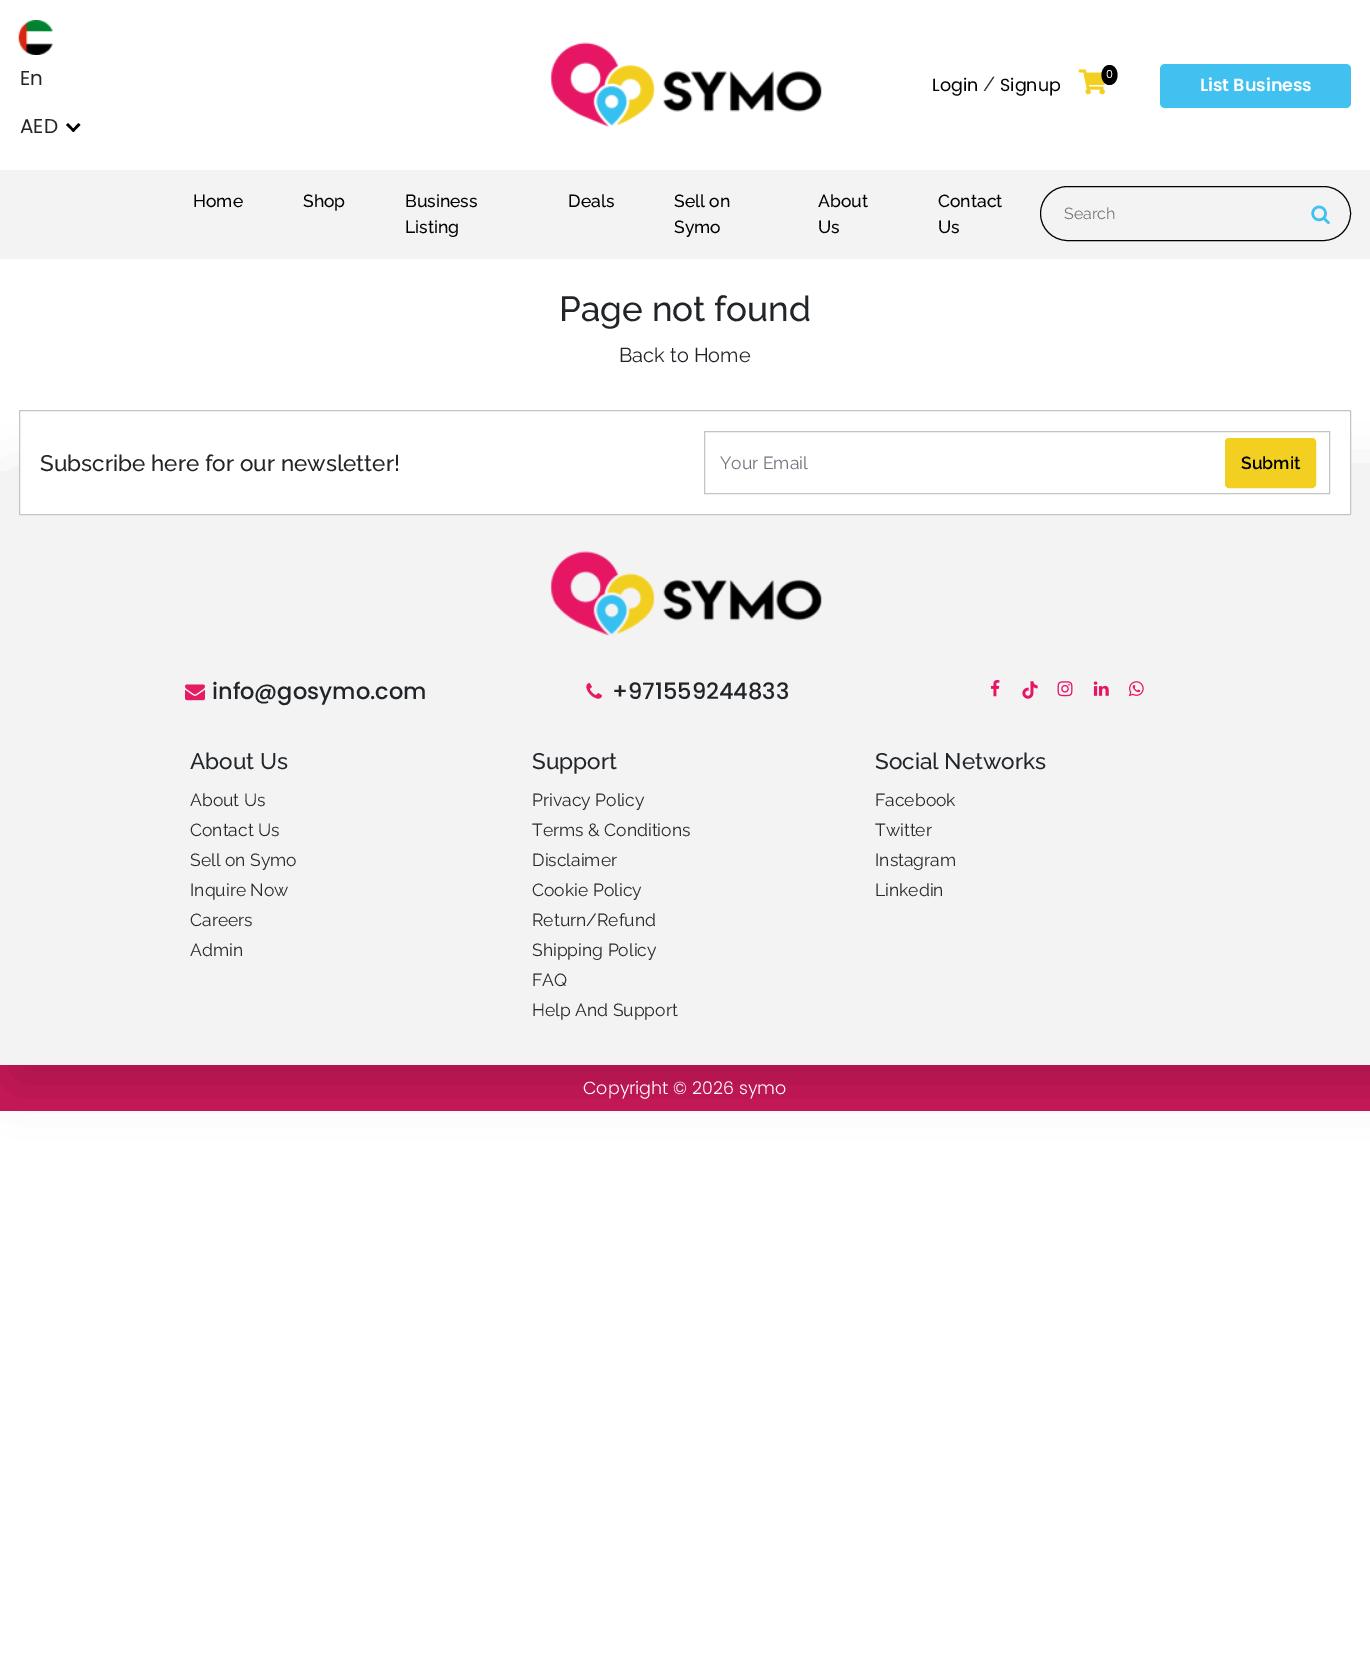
%!PS
<< /PageSize [1370 1675] /PageUsesTransparency true >> setpagedevice
/rgb { dup -16 bitshift 255 div exch dup -8 bitshift 255 and 255 div exch 255 and 255 div setrgbcolor } def
/font { [ exch dup neg 0 0 3 -1 roll 0 0 ] selectfont } def
/text { moveto show } def
/alpha { dup .setfillconstantalpha .setstrokeconstantalpha } def
/roundrect { 5 dict begin { /r /h /w /y /x } { exch def } forall
  x r add y moveto x w add y 2 copy h add r arct x w add y h add x 1 index r arct
  x y h add x y r arct x y 2 copy exch w add exch r arct closepath end } def
/shadow { 12 dict begin { /a /b /q /h /w /y /x } { exch def } forall gsave /was 0 def
  9 -2 -9 { dup b mul 4 div /e exch def 1 sub .425 mul 2.718 exch exp 1 add a .99 .min exch div /now exch def
    1 1 now sub 1 was sub div sub alpha /was now def
    w h .min e 2 mul add 0 gt { x e sub y e sub w e 2 mul add h e 2 mul add
      q e add b .6 mul add w h .min 2 div e add .min 0 .max roundrect fill } if } for grestore end } def
/picture { 5 dict begin { /h /w /y /x /name } { exch def } forall
  gsave x y translate w h scale
  w h 8 [w 0 0 h 0 0] name (r) file false 3 colorimage grestore end } def
0 .pushpdf14devicefilter
0 1675 translate 1 -1 scale
4 setmiterlimit
/s1 { /Poppins-Regular 20 font 16#212529 rgb } def
/s2 { /Poppins-Regular 11 font 16#FFFFFF rgb } def
/s3 { /Poppins-Regular 17.5 font 16#000000 rgb } def
/s4 { /Raleway-Regular 20 font 16#212529 rgb } def
/s5 { /Poppins-SemiBold 17.5 font 16#FFFFFF rgb } def
/s6 { /Raleway-Medium 17.5 font 16#000000 rgb } def
/s7 { /Raleway-Regular 16 font 16#757575 rgb } def
/s8 { /Raleway-Medium 35 font 16#212529 rgb } def
/s9 { /Raleway-Medium 22.5 font 16#212529 rgb } def
/s10 { /Raleway-Regular 17.5 font 16#6C757D rgb } def
/s11 { /Raleway-SemiBold 17.5 font 16#000000 rgb } def
/s12 { /Poppins-Medium 22.5 font 16#212529 rgb } def
/s13 { /Raleway-Regular 17.5 font 16#292929 rgb } def
/s14 { /Poppins-Light 17.5 font 16#FFFFFF rgb } def
16#FFFFFF rgb
0 0 1370 1675 rectfill
(pic1.raw) 18 20 35 35 picture
s1
(En) 20 85 text
(AED) 20 133 text
16#000000 rgb
78.5 123 moveto 80.5 125 lineto 73.5 132 lineto 71.5 130.5 lineto closepath fill
68 123 moveto 75 130.5 lineto 73.5 132 lineto 66 125 lineto closepath fill
(pic2.raw) 550 42 272 86 picture
(pic3.raw) 1078 69 27 26 picture
1109.5 65 moveto 1114 65 1117.5 69.5 1117.5 75 curveto 1117.5 80.5 1114 85 1109.5 85 curveto 1105 85 1101.5 80.5 1101.5 75 curveto 1101.5 69.5 1105 65 1109.5 65 curveto closepath fill
s2
(0) 1106 78 text
s3
(Login) 932 91 text
s4
(/) 983 91 text
s3
(Signup) 1000 91 text
16#41C1F0 rgb
1160 64 191 44 5 roundrect fill
s5
(List Business) 1200 91 text
16#F3F3F3 rgb
0 170 1370 89 rectfill
s6
(Home) 193 207 text
(Shop) 303 207 text
(Business) 405 207 text
(Listing) 405 233 text
(Deals) 568 207 text
(Sell on) 674 207 text
(Symo) 674 233 text
(About) 818 207 text
(Us) 818 233 text
(Contact) 938 207 text
(Us) 938 233 text
1040.5 186.5 310 54 27 roundrect stroke
s7
(Search) 1064 219 text
(pic4.raw) 1311 205 19 20 picture
s8
(Page not found) 559 321 text
s4
(Back to Home) 619 362 text
16#C71857 rgb
0 1065 1370 46 rectfill
16#000000 rgb
14 484 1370 594 0 28 0.16 shadow
16#F3F3F3 rgb
0 471 1370 594 rectfill
16#FFFFFF rgb
19.5 410.5 1331 104 0.5 roundrect gsave fill grestore
16#C4C4C4 rgb
stroke
s9
(Subscribe here for our newsletter!) 40 471 text
16#C4C4C4 rgb
704.5 431.5 625 62 rectstroke
s10
(Your Email) 720 469 text
16#F3CF21 rgb
1225.5 438.5 90 49 3.5 roundrect gsave fill grestore
stroke
s11
(Submit) 1241 469 text
(pic5.raw) 550 551 272 85 picture
(pic6.raw) 185 684 20 17 picture
s12
(info@gosymo.com) 212 699 text
(pic7.raw) 586 683 16 16 picture
(+971559244833) 612 699 text
(pic8.raw) 990 680 10 17 picture
(pic9.raw) 1022 681 16 18 picture
(pic10.raw) 1057 681 16 16 picture
(pic11.raw) 1093 681 16 15 picture
(pic12.raw) 1128 681 16 16 picture
s9
(About Us) 190 769 text
s13
(About Us) 190 806 text
(Contact Us) 190 836 text
(Sell on Symo) 190 866 text
(Inquire Now) 190 896 text
(Careers) 190 926 text
(Admin) 190 956 text
s9
(Support) 532 769 text
s13
(Privacy Policy) 532 806 text
(Terms & Conditions) 532 836 text
(Disclaimer) 532 866 text
(Cookie Policy) 532 896 text
(Return/Refund) 532 926 text
(Shipping Policy) 532 956 text
(FAQ) 532 986 text
(Help And Support) 532 1016 text
s9
(Social Networks) 875 769 text
s13
(Facebook) 875 806 text
(Twitter) 875 836 text
(Instagram) 875 866 text
(Linkedin) 875 896 text
s14
(Copyright © 2026 symo) 583 1094 text
.poppdf14devicefilter showpage
